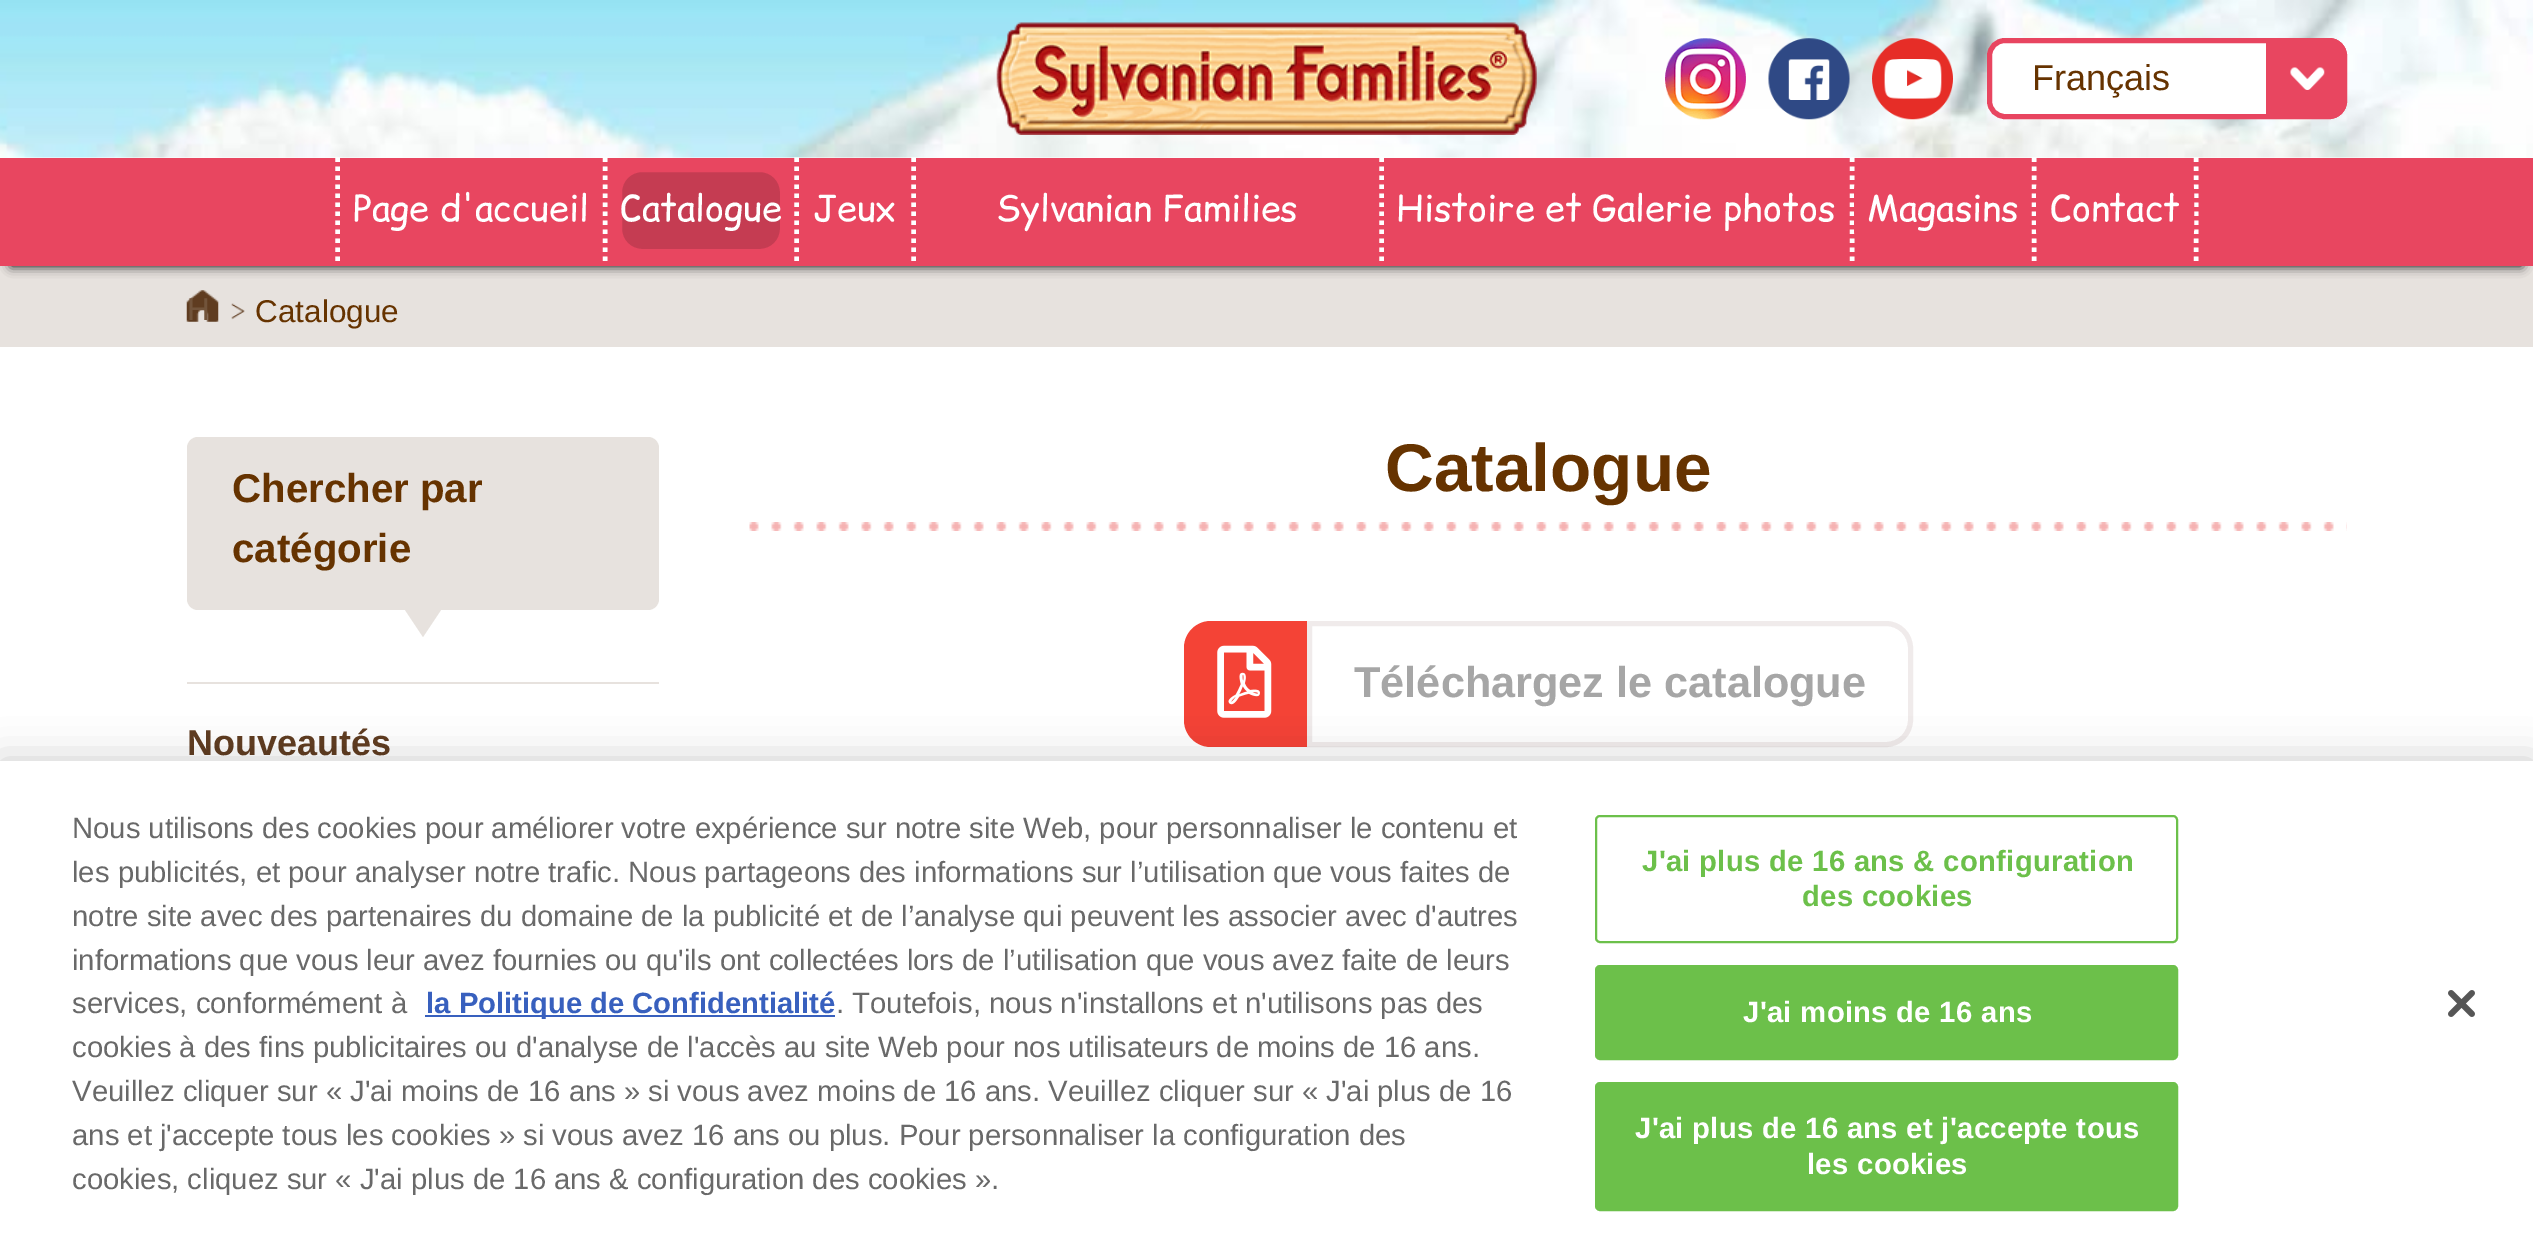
%!PS
<< /PageSize [2533 1253] /PageUsesTransparency true >> setpagedevice
/rgb { dup -16 bitshift 255 div exch dup -8 bitshift 255 and 255 div exch 255 and 255 div setrgbcolor } def
/font { [ exch dup neg 0 0 3 -1 roll 0 0 ] selectfont } def
/text { moveto show } def
/alpha { dup .setfillconstantalpha .setstrokeconstantalpha } def
/roundrect { 5 dict begin { /r /h /w /y /x } { exch def } forall
  x r add y moveto x w add y 2 copy h add r arct x w add y h add x 1 index r arct
  x y h add x y r arct x y 2 copy exch w add exch r arct closepath end } def
/shadow { 12 dict begin { /a /b /q /h /w /y /x } { exch def } forall gsave /was 0 def
  9 -2 -9 { dup b mul 4 div /e exch def 1 sub .425 mul 2.718 exch exp 1 add a .99 .min exch div /now exch def
    1 1 now sub 1 was sub div sub alpha /was now def
    w h .min e 2 mul add 0 gt { x e sub y e sub w e 2 mul add h e 2 mul add
      q e add b .6 mul add w h .min 2 div e add .min 0 .max roundrect fill } if } for grestore end } def
/picture { 5 dict begin { /h /w /y /x /name } { exch def } forall
  gsave x y translate w h scale
  w h 8 [w 0 0 h 0 0] name (r) file false 3 colorimage grestore end } def
0 .pushpdf14devicefilter
0 1253 translate 1 -1 scale
4 setmiterlimit
/s1 { /LiberationSans-Regular 36 font 16#663300 rgb } def
/s2 { /ComicRelief-Regular 36 font 16#FFFFFF rgb } def
/s3 { /LiberationSans-Regular 31.5 font 16#72543B rgb } def
/s4 { /LiberationSans-Regular 31.5 font 16#663300 rgb } def
/s5 { /LiberationSans-Bold 40.25 font 16#663300 rgb } def
/s6 { /LiberationSans-Bold 36 font 16#603C21 rgb } def
/s7 { /LiberationSans-Bold 67.5 font 16#663300 rgb } def
/s8 { /LiberationSans-Bold 43.25 font 16#A6A6A6 rgb } def
/s9 { /LiberationSans-Regular 29.25 font 16#696969 rgb } def
/s10 { /LiberationSans-Bold 29.25 font 16#3860BE rgb } def
16#FFFFFF rgb
0 0 2533 1253 rectfill
(pic1.raw) 0 0 2533 158 picture
(pic2.raw) 996 22 541 113 picture
16#E7E2DE rgb
0 266 2533 81 rectfill
16#000000 rgb
11 180 2511 86 0 5.5 1 shadow
16#E84660 rgb
0 158 2533 108 rectfill
(pic3.raw) 1665 38 81 82 picture
(pic4.raw) 1768 38 82 82 picture
(pic5.raw) 1872 38 81 82 picture
16#FFFFFF rgb
1989.5 40.5 355 76 15.5 roundrect gsave fill grestore
16#E84560 rgb
5 setlinewidth
stroke
s1
(Français) 2032 90 text
16#E84660 rgb
2266 38 moveto 2329 38 lineto 2339 38 2347 46 2347 56 curveto 2347 101 lineto 2347 111 2339 119 2329 119 curveto 2266 119 lineto closepath fill
(pic6.raw) 2290 67 35 23 picture
16#FFFFFF rgb
4.5 setlinewidth
[4.5 4.5] 0 setdash
337.5 157.5 moveto 337.5 265.5 lineto stroke
s2
(Page d'accueil) 353 221 text
605 157.5 moveto 605 265.5 lineto stroke
16#C53C52 rgb
615 165 172 91 27 roundrect gsave fill grestore
16#E84660 rgb
14 setlinewidth
[] 0 setdash
stroke
s2
(Catalogue) 620 221 text
4.5 setlinewidth
[4.5 4.5] 0 setdash
796.5 157.5 moveto 796.5 265.5 lineto stroke
(Jeux) 813 221 text
913.5 157.5 moveto 913.5 265.5 lineto stroke
(Sylvanian Families) 996 221 text
1381.5 157.5 moveto 1381.5 265.5 lineto stroke
(Histoire et Galerie photos) 1396 221 text
1852 157.5 moveto 1852 265.5 lineto stroke
16#E84660 rgb
14 setlinewidth
[] 0 setdash
1861 165 164 91 27 roundrect stroke
s2
(Magasins) 1867 221 text
4.5 setlinewidth
[4.5 4.5] 0 setdash
2196 157.5 moveto 2196 265.5 lineto stroke
2034 157.5 moveto 2034 265.5 lineto stroke
16#E84660 rgb
14 setlinewidth
[] 0 setdash
2043 165 144 91 27 roundrect stroke
s2
(Contact) 2050 221 text
(pic7.raw) 231 303 14 17 picture
(pic8.raw) 186 290 33 32 picture
s3
(H) 187 320 text
s4
(Catalogue) 255 322 text
16#E7E2DE rgb
187 437 472 173 11 roundrect fill
s5
(Chercher par) 232 502 text
(catégorie) 232 562 text
16#E7E2DE rgb
405 610 moveto 441 610 lineto 423 637 lineto closepath fill
187 682 472 2 rectfill
s6
(Nouveautés) 187 755 text
(pic9.raw) 749 522 1598 9 picture
s7
(Catalogue) 1385 491 text
16#F44336 rgb
1211 621 moveto 1307 621 lineto 1307 747 lineto 1211 747 lineto 1196 747 1184 735 1184 720 curveto 1184 648 lineto 1184 633 1196 621 1211 621 curveto closepath fill
(pic10.raw) 1217 645 55 73 picture
16#F0EBEB rgb
5 setlinewidth
1309.5 623.5 moveto 1886 623.5 lineto 1899.5 623.5 1910.5 634.5 1910.5 648 curveto 1910.5 720 lineto 1910.5 733.5 1899.5 744.5 1886 744.5 curveto 1309.5 744.5 lineto closepath stroke
s8
(Téléchargez le catalogue) 1354 697 text
16#000000 rgb
0 761 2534 492 0 20 0.2 shadow
16#FFFFFF rgb
0 761 2533 492 rectfill
s9
(Nous utilisons des cookies pour améliorer votre expérience sur notre site Web, pour personnaliser le contenu et) 72 838 text
(les publicités, et pour analyser notre trafic. Nous partageons des informations sur l’utilisation que vous faites de) 72 882 text
(notre site avec des partenaires du domaine de la publicité et de l’analyse qui peuvent les associer avec d'autres) 72 926 text
(informations que vous leur avez fournies ou qu'ils ont collectées lors de l’utilisation que vous avez faite de leurs) 72 970 text
(services, conformément à) 72 1013 text
16#3860BE rgb
425 1015 410 2 rectfill
s10
(la Politique de Confidentialité) 426 1013 text
s9
(. Toutefois, nous n'installons et n'utilisons pas des) 836 1013 text
(cookies à des fins publicitaires ou d'analyse de l'accès au site Web pour nos utilisateurs de moins de 16 ans.) 72 1057 text
(Veuillez cliquer sur « J'ai moins de 16 ans » si vous avez moins de 16 ans. Veuillez cliquer sur « J'ai plus de 16) 72 1101 text
(ans et j'accepte tous les cookies » si vous avez 16 ans ou plus. Pour personnaliser la configuration des) 72 1145 text
(cookies, cliquez sur « J'ai plus de 16 ans & configuration des cookies ».) 72 1189 text
16#6CC04A rgb
2 setlinewidth
1596 816 581 126 4 roundrect stroke
/LiberationSans-Bold 29.25 font
1642 871 moveto 0.3 0 (J'ai plus de 16 ans & configuration) ashow
1802 906 moveto 0.3 0 (des cookies) ashow
1596 966 581 93 4 roundrect gsave fill grestore
stroke
16#FFFFFF rgb
1743 1022 moveto 0.3 0 (J'ai moins de 16 ans) ashow
16#6CC04A rgb
1596 1083 581 127 4 roundrect gsave fill grestore
stroke
16#FFFFFF rgb
1635 1138 moveto 0.3 0 (J'ai plus de 16 ans et j'accepte tous) ashow
1807 1174 moveto 0.3 0 (les cookies) ashow
(pic11.raw) 2448 990 27 27 picture
.poppdf14devicefilter showpage
